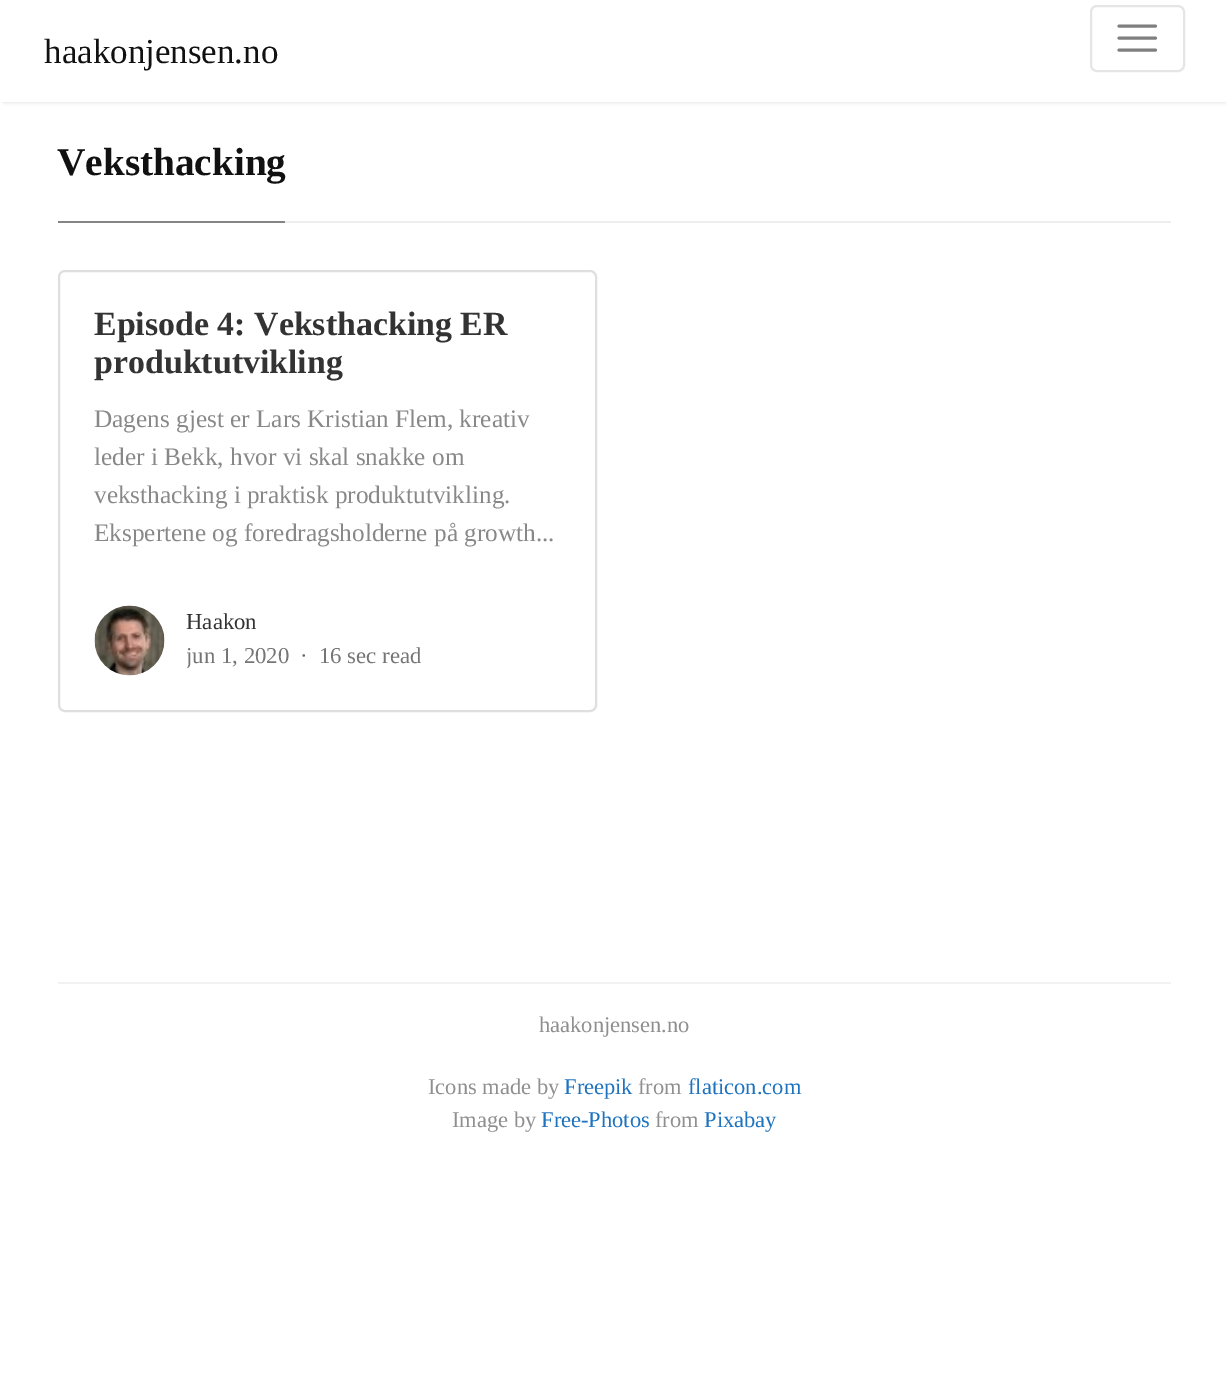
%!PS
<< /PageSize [1227 1379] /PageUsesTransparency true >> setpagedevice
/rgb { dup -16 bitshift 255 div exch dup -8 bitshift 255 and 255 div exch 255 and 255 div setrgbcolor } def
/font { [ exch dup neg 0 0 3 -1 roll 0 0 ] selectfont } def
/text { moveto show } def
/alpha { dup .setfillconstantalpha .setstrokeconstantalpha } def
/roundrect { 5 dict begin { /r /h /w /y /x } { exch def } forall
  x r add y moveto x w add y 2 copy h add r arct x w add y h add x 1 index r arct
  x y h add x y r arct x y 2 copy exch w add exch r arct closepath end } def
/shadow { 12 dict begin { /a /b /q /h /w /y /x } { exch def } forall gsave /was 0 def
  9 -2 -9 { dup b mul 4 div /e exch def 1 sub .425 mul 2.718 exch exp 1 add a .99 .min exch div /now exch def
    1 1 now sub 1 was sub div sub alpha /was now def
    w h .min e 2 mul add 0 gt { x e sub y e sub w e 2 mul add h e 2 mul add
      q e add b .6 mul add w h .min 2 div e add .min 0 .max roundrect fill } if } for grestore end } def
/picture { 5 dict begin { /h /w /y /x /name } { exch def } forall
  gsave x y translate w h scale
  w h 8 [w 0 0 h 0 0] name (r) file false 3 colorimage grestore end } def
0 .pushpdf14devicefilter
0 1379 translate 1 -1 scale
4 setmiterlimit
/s1 { /LiberationSerif-Regular 35 font 16#111111 rgb } def
/s2 { /LiberationSerif-Bold 39.25 font 16#111111 rgb } def
/s3 { /LiberationSerif-Bold 33.9 font 16#333333 rgb } def
/s4 { /LiberationSerif-Regular 25.25 font 16#888888 rgb } def
/s5 { /LiberationSerif-Regular 22.75 font 16#333333 rgb } def
/s6 { /LiberationSerif-Regular 22.75 font 16#757575 rgb } def
/s7 { /LiberationSerif-Regular 22.75 font 16#666666 rgb } def
/s8 { /LiberationSerif-Regular 22.5 font 16#8F8F8F rgb } def
/s9 { /LiberationSerif-Regular 22.5 font 16#1E73BE rgb } def
16#FFFFFF rgb
0 0 1227 1379 rectfill
gsave
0 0 moveto 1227 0 lineto 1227 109 lineto 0 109 lineto closepath 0 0 moveto 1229 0 lineto 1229 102 lineto 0 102 lineto closepath eoclip newpath
16#000000 rgb
4 7 1221 95 0 2 0.15 shadow
grestore
0.97 alpha
3 101 1223 1 rectfill
1 alpha
s1
(haakonjensen.no) 44 63 text
16#E5E5E5 rgb
2 setlinewidth
1091 6 93 65 6 roundrect stroke
16#7F7F7F rgb
3 setlinewidth
1 setlinecap
1119 26 moveto 1155.5 26 lineto 1119 38 moveto 1155.5 38 lineto 1119 50 moveto 1155.5 50 lineto stroke
16#EEEEEE rgb
285 221 886 2 rectfill
16#858585 rgb
58 221 227 2 rectfill
s2
(Veksthacking) 57 175 text
16#DFDFDF rgb
2 setlinewidth
0 setlinecap
59 271 537 440 6 roundrect stroke
s3
(Episode 4: Veksthacking ER) 94 335 text
(produktutvikling) 94 373 text
s4
(Dagens gjest er Lars Kristian Flem, kreativ) 94 427 text
(leder i Bekk, hvor vi skal snakke om) 94 465 text
(veksthacking i praktisk produktutvikling.) 94 503 text
(Ekspertene og foredragsholderne på growth...) 94 541 text
(pic1.raw) 94 605 71 71 picture
s5
(Haakon) 186 629 text
gsave
187 606 235 68 rectclip
s6
(jun 1, 2020) 186 663 text
grestore
s7
(·) 300 663 text
s6
(16 sec read) 319 663 text
16#F2F2F2 rgb
58 982 1113 2 rectfill
s8
(haakonjensen.no) 539 1032 text
(Icons made by) 428 1094 text
s9
(Freepik) 564 1094 text
s8
(from) 638 1094 text
s9
(flaticon.com) 688 1094 text
s8
(Image by) 452 1127 text
s9
(Free-Photos) 541 1127 text
s8
(from) 655 1127 text
s9
(Pixabay) 704 1127 text
.poppdf14devicefilter showpage
